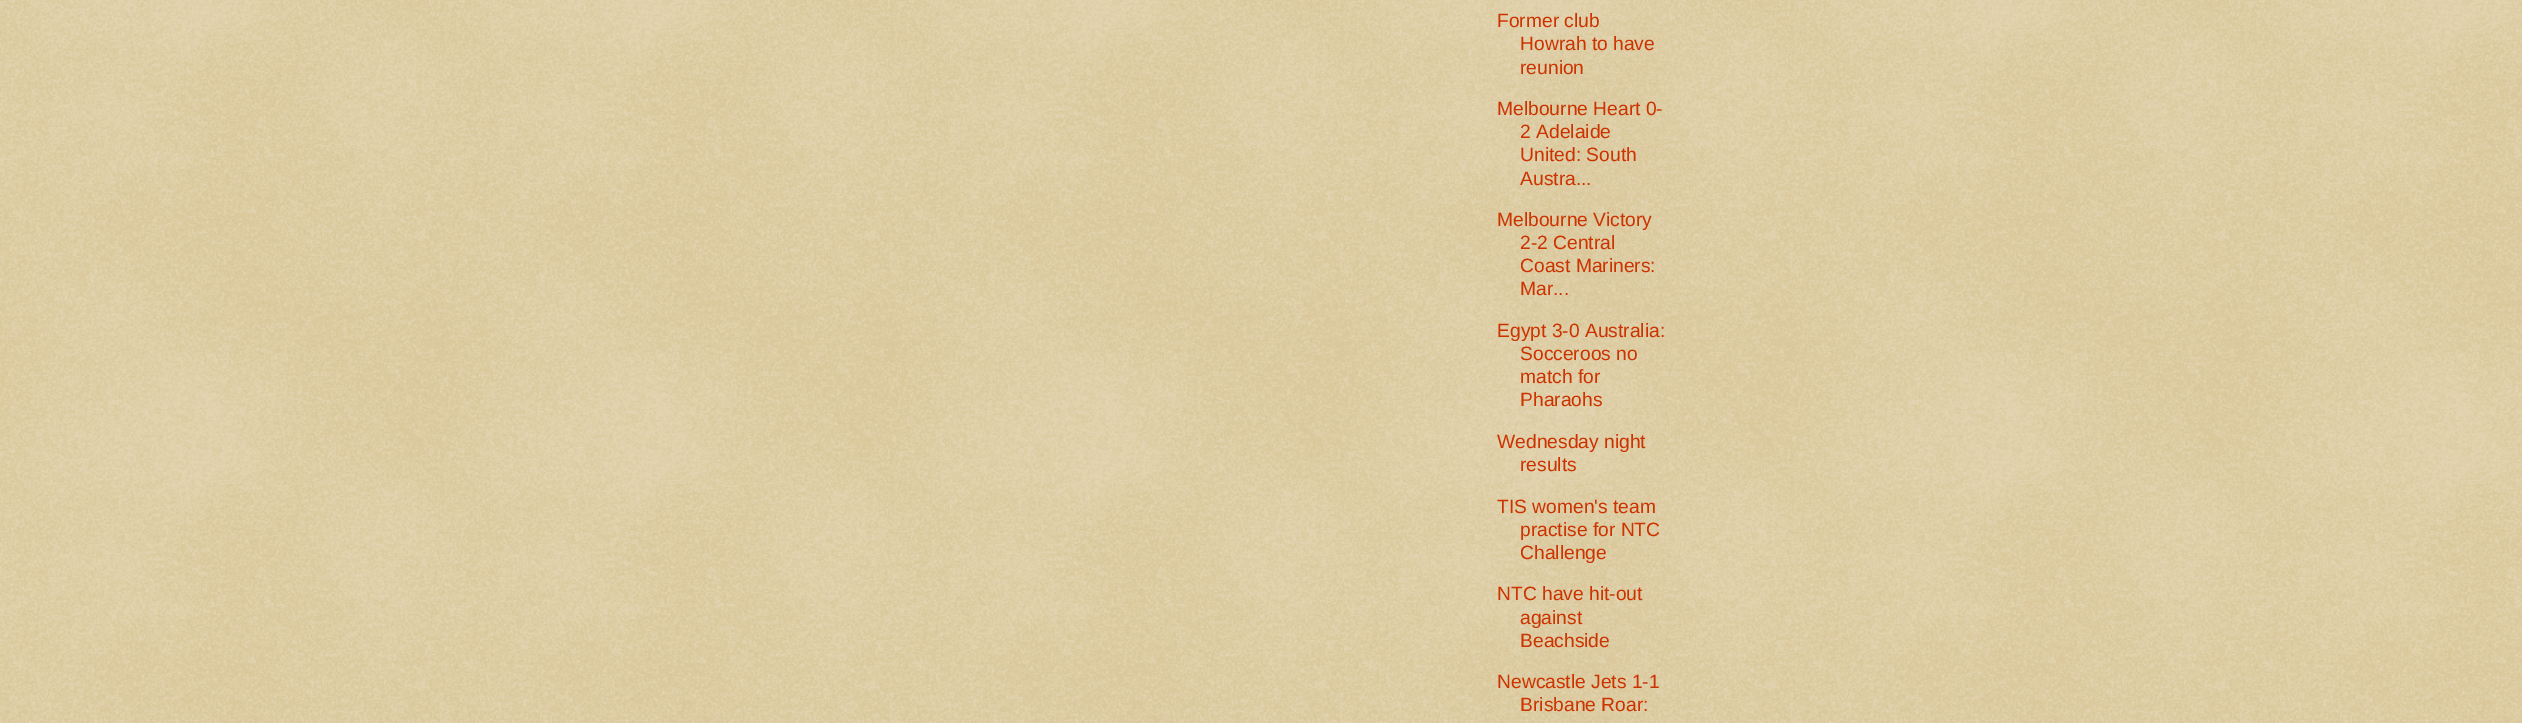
%!PS
<< /PageSize [2522 723] >> setpagedevice
/rgb { dup -16 bitshift 255 div exch dup -8 bitshift 255 and 255 div exch 255 and 255 div setrgbcolor } def
/font { [ exch dup neg 0 0 3 -1 roll 0 0 ] selectfont } def
/text { moveto show } def
/picture { 5 dict begin { /h /w /y /x /name } { exch def } forall
  gsave x y translate w h scale
  w h 8 [w 0 0 h 0 0] name (r) file false 3 colorimage grestore end } def
0 723 translate 1 -1 scale
4 setmiterlimit
/s1 { /LiberationSans-Regular 19.25 font 16#CC3300 rgb } def
16#C0A154 rgb
0 0 2522 723 rectfill
(pic1.raw) 0 0 2522 723 picture
s1
(Former club) 1497 27 text
(Howrah to have) 1520 50 text
(reunion) 1520 74 text
(Melbourne Heart 0-) 1497 115 text
(2 Adelaide) 1520 138 text
(United: South) 1520 161 text
(Austra...) 1520 185 text
(Melbourne Victory) 1497 226 text
(2-2 Central) 1520 249 text
(Coast Mariners:) 1520 272 text
(Mar...) 1520 295 text
(Egypt 3-0 Australia:) 1497 337 text
(Socceroos no) 1520 360 text
(match for) 1520 383 text
(Pharaohs) 1520 406 text
(Wednesday night) 1497 448 text
(results) 1520 471 text
(TIS women's team) 1497 513 text
(practise for NTC) 1520 536 text
(Challenge) 1520 559 text
(NTC have hit-out) 1497 600 text
(against) 1520 624 text
(Beachside) 1520 647 text
(Newcastle Jets 1-1) 1497 688 text
(Brisbane Roar:) 1520 711 text
showpage
